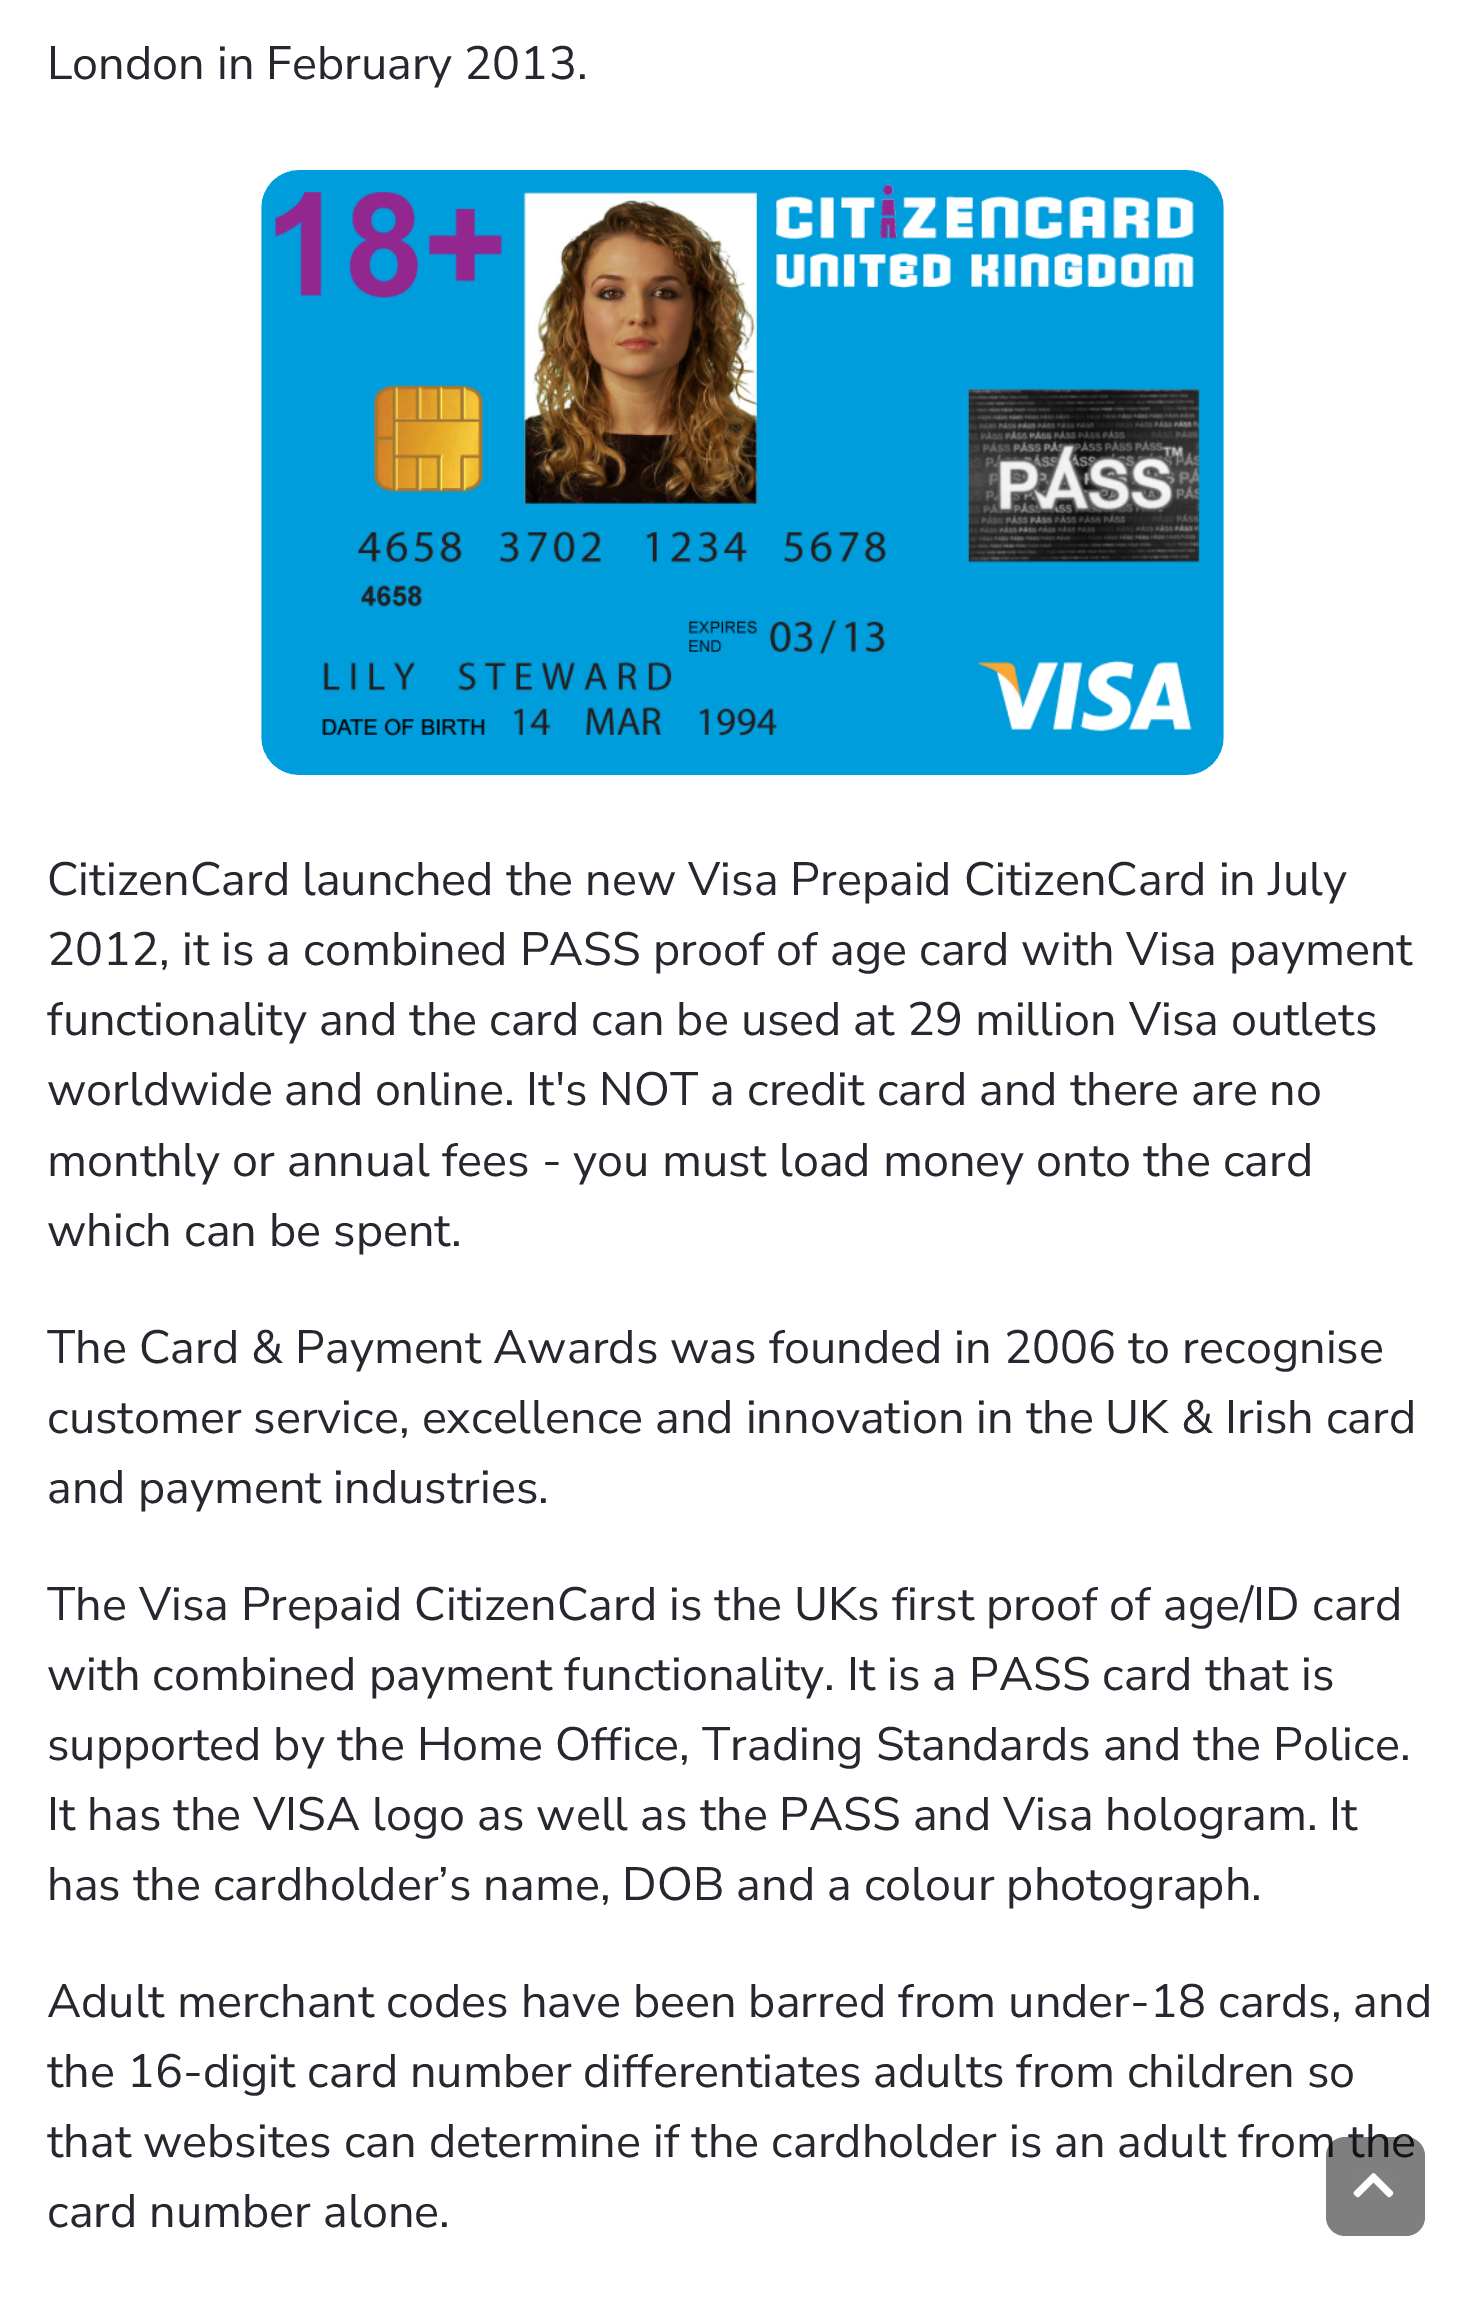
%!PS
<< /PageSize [1484 2302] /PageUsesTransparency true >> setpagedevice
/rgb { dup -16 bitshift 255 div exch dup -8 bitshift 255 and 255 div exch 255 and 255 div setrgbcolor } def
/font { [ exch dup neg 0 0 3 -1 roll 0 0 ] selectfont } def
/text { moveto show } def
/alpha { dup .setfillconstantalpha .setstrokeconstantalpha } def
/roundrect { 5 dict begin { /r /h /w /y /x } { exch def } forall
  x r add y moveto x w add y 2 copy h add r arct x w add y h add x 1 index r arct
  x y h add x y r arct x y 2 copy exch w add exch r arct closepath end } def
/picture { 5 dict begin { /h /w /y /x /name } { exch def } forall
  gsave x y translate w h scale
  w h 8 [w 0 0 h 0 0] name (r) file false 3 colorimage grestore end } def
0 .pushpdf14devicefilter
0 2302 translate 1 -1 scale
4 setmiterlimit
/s1 { /NunitoSans-Regular 46.75 font 16#28262E rgb } def
16#FFFFFF rgb
0 0 1484 2302 rectfill
s1
(London in February 2013.) 47 79 text
(pic1.raw) 261 170 963 605 picture
(CitizenCard launched the new Visa Prepaid CitizenCard in July) 47 895 text
(2012, it is a combined PASS proof of age card with Visa payment) 47 965 text
(functionality and the card can be used at 29 million Visa outlets) 47 1035 text
(worldwide and online. It's NOT a credit card and there are no) 47 1105 text
(monthly or annual fees - you must load money onto the card) 47 1176 text
(which can be spent.) 47 1246 text
(The Card & Payment Awards was founded in 2006 to recognise) 47 1363 text
(customer service, excellence and innovation in the UK & Irish card) 47 1433 text
(and payment industries.) 47 1503 text
(The Visa Prepaid CitizenCard is the UKs first proof of age/ID card) 47 1620 text
(with combined payment functionality. It is a PASS card that is) 47 1690 text
(supported by the Home Office, Trading Standards and the Police.) 47 1760 text
(It has the VISA logo as well as the PASS and Visa hologram. It) 47 1830 text
(has the cardholder’s name, DOB and a colour photograph.) 47 1900 text
(Adult merchant codes have been barred from under-18 cards, and) 47 2017 text
(the 16-digit card number differentiates adults from children so) 47 2087 text
(that websites can determine if the cardholder is an adult from the) 47 2157 text
(card number alone.) 47 2227 text
0.5 alpha
16#000000 rgb
1326 2137 99 99 19 roundrect fill
1 alpha
(pic2.raw) 1353 2173 41 25 picture
.poppdf14devicefilter showpage
